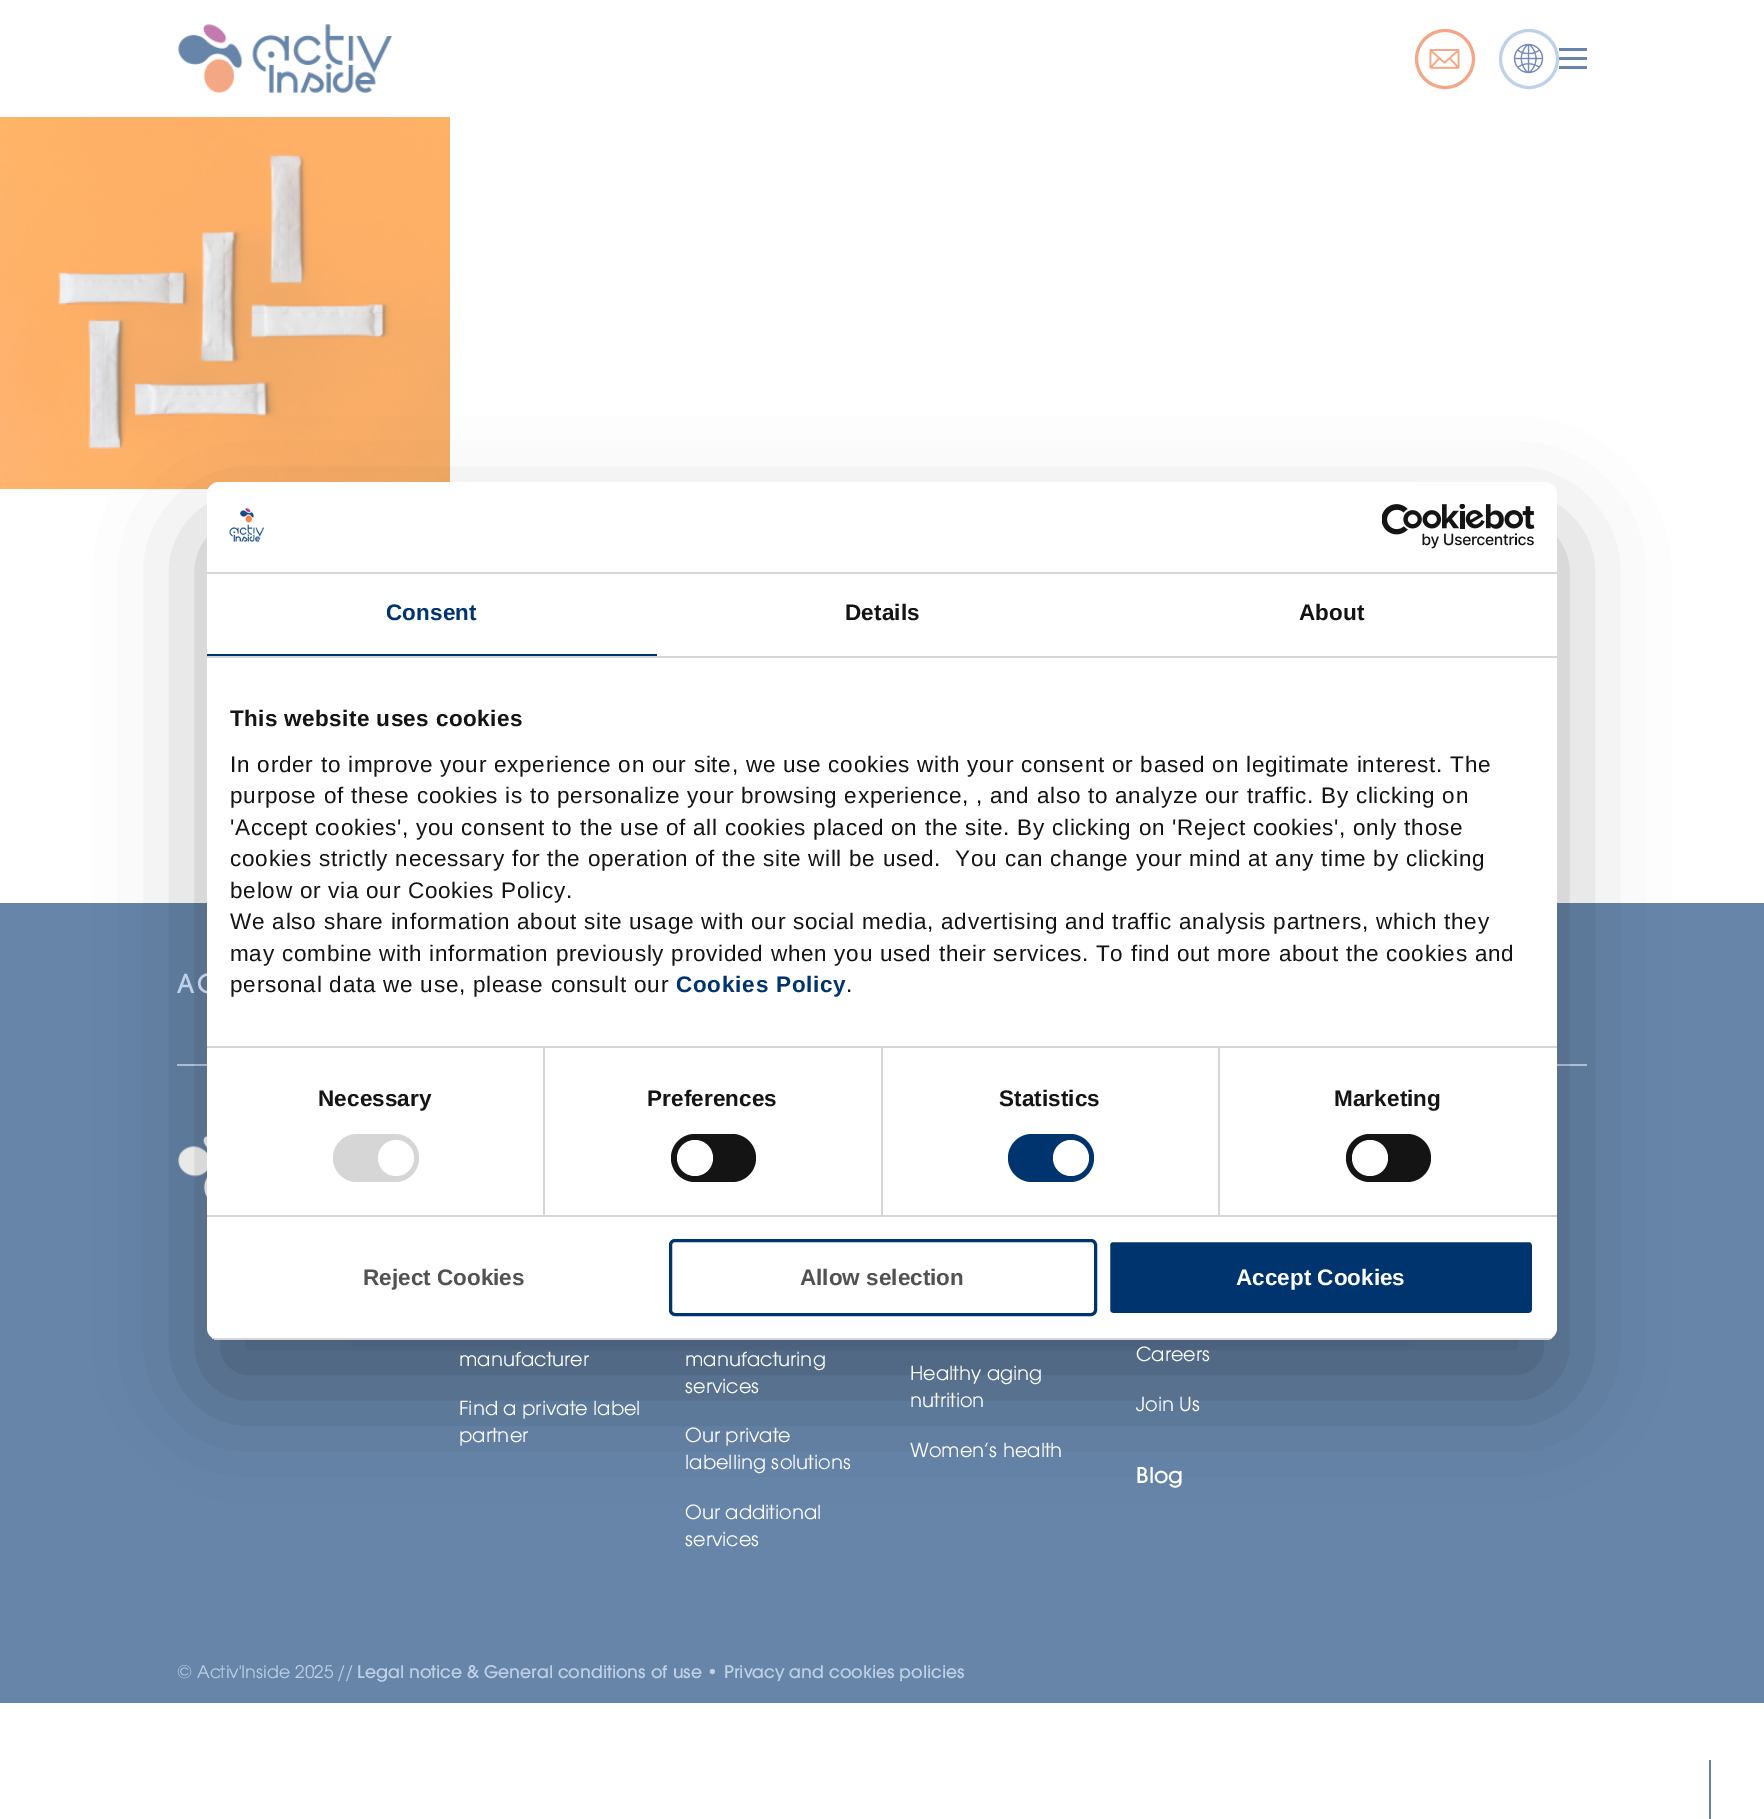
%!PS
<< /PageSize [1764 1819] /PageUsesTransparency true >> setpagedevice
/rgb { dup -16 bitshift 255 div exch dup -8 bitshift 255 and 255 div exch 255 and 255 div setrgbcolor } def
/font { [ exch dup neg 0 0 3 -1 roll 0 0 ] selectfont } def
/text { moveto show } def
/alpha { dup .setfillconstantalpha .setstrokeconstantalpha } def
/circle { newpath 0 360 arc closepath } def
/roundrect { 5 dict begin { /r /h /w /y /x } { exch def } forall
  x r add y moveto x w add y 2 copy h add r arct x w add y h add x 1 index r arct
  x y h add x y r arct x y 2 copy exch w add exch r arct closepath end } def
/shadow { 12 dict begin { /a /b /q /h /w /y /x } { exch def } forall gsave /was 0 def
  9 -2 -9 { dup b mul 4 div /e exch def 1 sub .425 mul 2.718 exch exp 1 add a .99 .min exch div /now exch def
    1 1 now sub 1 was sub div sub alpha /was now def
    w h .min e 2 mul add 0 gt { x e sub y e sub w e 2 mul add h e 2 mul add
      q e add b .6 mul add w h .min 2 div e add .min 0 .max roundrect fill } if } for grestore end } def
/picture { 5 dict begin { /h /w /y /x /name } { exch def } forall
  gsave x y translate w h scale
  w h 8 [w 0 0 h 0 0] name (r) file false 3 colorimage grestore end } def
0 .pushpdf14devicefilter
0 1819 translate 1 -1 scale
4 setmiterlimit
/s1 { /LiberationSans-Bold 22.5 font 16#525252 rgb } def
/s2 { /LiberationSans-Bold 22.5 font 16#FFFFFF rgb } def
/s3 { /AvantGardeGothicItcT-Regular 21.5 font 16#FFFFFF rgb } def
/s4 { /AvantGardeGothicItcT-Medium 24 font 16#FFFFFF rgb } def
/s5 { /AvantGardeGothicItcT-Regular 19.25 font 16#BED1E8 rgb } def
/s6 { /AvantGardeGothicItcT-Medium 19.25 font 16#BED1E8 rgb } def
16#FFFFFF rgb
0 0 1764 1819 rectfill
(pic1.raw) 178 24 214 69 picture
16#F4A785 rgb
3 setlinewidth
1445 59 28.5 circle stroke
(pic2.raw) 1429 49 31 20 picture
16#BED1E8 rgb
1529 59 28.5 circle stroke
(pic3.raw) 1513 43 31 31 picture
16#6685A8 rgb
1559 48 28 3 rectfill
1559 57 28 3 rectfill
1559 66 28 3 rectfill
(pic4.raw) 0 117 450 372 picture
1709 1760 2 59 rectfill
0 903 1764 800 rectfill
16#BED1E8 rgb
177 1064 1410 2 rectfill
16#00346E rgb
357 495 1050 845 0 7.5 0.1 shadow
(pic7.raw) 178 1135 29 62 picture
16#000000 rgb
207 530 1350 858 12 51 0.3 shadow
/AvantGardeGothicItcT-Medium 29 font
16#BED1E8 rgb
177 993 moveto 3 0 (AC) ashow
16#FFFFFF rgb
207 482 1350 858 12 roundrect fill
16#D6D6D6 rgb
207 572 1350 2 rectfill
(pic5.raw) 229 507 35 35 picture
(pic6.raw) 1382 504 153 45 picture
207 656 1350 2 rectfill
16#00346E rgb
207 654 450 2 rectfill
/LiberationSans-Bold 22.5 font
386 620 moveto 0.1 0 (Consent) ashow
16#141414 rgb
845 620 moveto 0.1 0 (Details) ashow
1299 620 moveto 0.1 0 (About) ashow
16#D6D6D6 rgb
543 1047 2 168 rectfill
881 1047 2 168 rectfill
1218 1047 2 168 rectfill
207 1046 1350 2 rectfill
16#141414 rgb
230 726 moveto 0.4 0 (This website uses cookies) ashow
/LiberationSans-Regular 22.5 font
230 772 moveto 0.75 0 (In order to improve your experience on our site, we use cookies with your consent or based on legitimate interest. The) ashow
230 803 moveto 0.75 0 (purpose of these cookies is to personalize your browsing experience, , and also to analyze our traffic. By clicking on) ashow
230 835 moveto 0.75 0 ('Accept cookies', you consent to the use of all cookies placed on the site. By clicking on 'Reject cookies', only those) ashow
230 866 moveto 0.75 0 (cookies strictly necessary for the operation of the site will be used.  You can change your mind at any time by clicking) ashow
230 898 moveto 0.75 0 (below or via our Cookies Policy.) ashow
230 929 moveto 0.75 0 (We also share information about site usage with our social media, advertising and traffic analysis partners, which they) ashow
230 961 moveto 0.75 0 (may combine with information previously provided when you used their services. To find out more about the cookies and) ashow
230 992 moveto 0.75 0 (personal data we use, please consult our) ashow
/LiberationSans-Bold 22.5 font
16#00346E rgb
676 992 moveto 0.75 0 (Cookies Policy) ashow
/LiberationSans-Regular 22.5 font
16#141414 rgb
846 992 moveto 0.75 0 (.) ashow
16#D6D6D6 rgb
207 1215 1350 2 rectfill
/LiberationSans-Bold 22.5 font
16#141414 rgb
318 1106 moveto 0.1 0 (Necessary) ashow
16#D6D6D6 rgb
333 1134 86 48 24 roundrect fill
16#FFFFFF rgb
396 1158 18 circle fill
16#141414 rgb
647 1106 moveto 0.1 0 (Preferences) ashow
671 1134 85 48 24 roundrect fill
16#FFFFFF rgb
695 1158 18 circle fill
16#141414 rgb
999 1106 moveto 0.1 0 (Statistics) ashow
16#00346E rgb
1008 1134 86 48 24 roundrect fill
16#FFFFFF rgb
1071 1158 18 circle fill
16#141414 rgb
1334 1106 moveto 0.1 0 (Marketing) ashow
1346 1134 85 48 24 roundrect fill
16#FFFFFF rgb
1370 1158 18 circle fill
gsave
207 482 1350 858 12 roundrect clip newpath
16#D6D6D6 rgb
207 1338 1350 2 rectfill
grestore
s1
(Reject Cookies) 363 1285 text
16#00346E rgb
670.5 1240.5 425 74 4.5 roundrect stroke
s1
(Allow selection) 800 1285 text
16#00346E rgb
1108.5 1240.5 425 74 4.5 roundrect gsave fill grestore
16#FFFFFF rgb
stroke
(Accept Cookies) 1236 1285 text
s3
(manufacturer) 459 1366 text
(Find a private label) 459 1415 text
(partner) 459 1442 text
(manufacturing) 685 1366 text
(services) 685 1393 text
(Our private) 685 1442 text
(labelling solutions) 685 1469 text
(Our additional) 685 1519 text
(services) 685 1546 text
(Healthy aging) 910 1380 text
(nutrition) 910 1407 text
(Women’s health) 910 1457 text
(Careers) 1136 1361 text
(Join Us) 1136 1411 text
s4
(Blog) 1136 1483 text
s5
(© Activ'Inside 2025 //) 177 1678 text
s6
(Legal notice & General conditions of use) 357 1678 text
s5
(•) 706 1678 text
s6
(Privacy and cookies policies) 724 1678 text
.poppdf14devicefilter showpage
